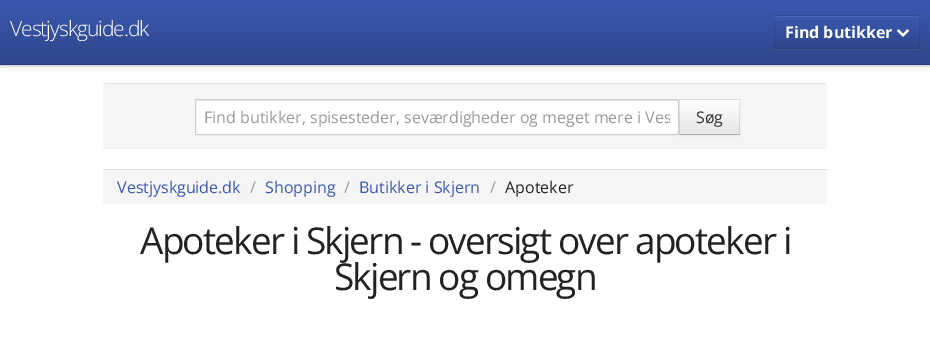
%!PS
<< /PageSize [930 359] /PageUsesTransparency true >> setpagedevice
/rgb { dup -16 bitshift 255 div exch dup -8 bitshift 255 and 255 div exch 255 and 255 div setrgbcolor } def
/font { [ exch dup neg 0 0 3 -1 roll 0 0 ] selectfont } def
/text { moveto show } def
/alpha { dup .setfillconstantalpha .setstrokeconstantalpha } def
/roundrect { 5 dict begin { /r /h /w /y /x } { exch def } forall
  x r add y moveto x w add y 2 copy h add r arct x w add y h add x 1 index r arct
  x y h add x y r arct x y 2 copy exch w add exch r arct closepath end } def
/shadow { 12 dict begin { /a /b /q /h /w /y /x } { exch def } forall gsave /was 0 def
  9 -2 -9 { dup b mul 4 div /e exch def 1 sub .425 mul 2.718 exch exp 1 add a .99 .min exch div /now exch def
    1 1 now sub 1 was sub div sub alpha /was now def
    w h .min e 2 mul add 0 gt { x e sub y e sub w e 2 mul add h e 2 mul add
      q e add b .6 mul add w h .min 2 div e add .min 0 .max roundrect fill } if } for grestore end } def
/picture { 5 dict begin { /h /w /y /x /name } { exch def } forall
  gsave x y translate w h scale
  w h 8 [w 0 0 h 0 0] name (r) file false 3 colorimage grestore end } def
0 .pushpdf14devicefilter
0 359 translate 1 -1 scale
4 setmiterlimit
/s1 { /OpenSans-Bold 16 font 16#FFFFFF rgb } def
/s2 { /OpenSans-Regular 16 font 16#999999 rgb } def
/s3 { /OpenSans-Regular 16 font 16#333333 rgb } def
/s4 { /OpenSans-Regular 16 font 16#3B59B0 rgb } def
/s5 { /OpenSans-Regular 16 font 16#222222 rgb } def
16#FFFFFF rgb
0 0 930 359 rectfill
16#000000 rgb
0 1 930 65 0 1.5 0.25 shadow
gsave 0 0 moveto 930 0 lineto 930 64 lineto 0 64 lineto closepath clip newpath
<< /ShadingType 2 /ColorSpace /DeviceRGB /Coords [465 0 465 65] /Extend [true true] /Function << /FunctionType 2 /Domain [0 1] /C0 [0.231 0.349 0.69] /C1 [0.18 0.275 0.541] /N 1 >> >> shfill grestore
16#293F7C rgb
0 64 930 1 rectfill
/OpenSans-Light 21 font
16#FFFFFF rgb
10 36 moveto -1 0 (Vestjyskguide.dk) ashow
16#40599B rgb
774 45 moveto 774 46 lineto 774 48 776 50 778 50 curveto 916 50 lineto 918 50 920 48 920 46 curveto 920 45 lineto 920 47 918 49 916 49 curveto 778 49 lineto 776 49 774 47 774 45 curveto closepath fill
16#3651A1 rgb
774 15 146 34 4 roundrect fill
gsave
774 15 146 34 4 roundrect clip newpath
gsave 774 16 moveto 920 16 lineto 920 48 lineto 774 48 lineto closepath clip newpath
<< /ShadingType 2 /ColorSpace /DeviceRGB /Coords [847 16 847 48] /Extend [true true] /Function << /FunctionType 2 /Domain [0 1] /C0 [0.231 0.349 0.69] /C1 [0.18 0.275 0.541] /N 1 >> >> shfill grestore
grestore
16#4F6AB7 rgb
778 17 moveto 916 17 lineto 918 17 919 18 919 20 curveto 919 19 lineto 919 17 918 16 916 16 curveto 778 16 lineto 776 16 775 17 775 19 curveto 775 20 lineto 775 18 776 17 778 17 curveto closepath fill
0.25 alpha
16#000000 rgb
918.5 47.5 moveto 918 48 917 48.5 916 48.5 curveto 778 48.5 lineto 777 48.5 776 48 775.5 47.5 curveto stroke
0.1 alpha
775.5 47.5 moveto 773.5 45 774.5 35 774.5 32 curveto 774.5 23.5 lineto 774.5 20.5 774 15.5 778 15.5 curveto 916 15.5 lineto 920 15.5 919.5 20.5 919.5 23.5 curveto 919.5 32 lineto 919.5 35 920.5 45 918.5 47.5 curveto stroke
1 alpha
s1
(Find butikker) 785 38 text
(pic1.raw) 897 29 12 8 picture
16#F5F5F5 rgb
103 83 724 66 3 roundrect fill
16#E3E3E3 rgb
105 83 721 1 rectfill
16#000000 rgb
679 100 61 36 0 1 0.05 shadow
16#FFFFFF rgb
195 99 moveto 676 99 lineto 677.5 99 679 100.5 679 102 curveto 679 132 lineto 679 133.5 677.5 135 676 135 curveto 195 135 lineto closepath fill
16#ECECEC rgb
196 101 moveto 676 101 lineto 677 101 678 102 678 103 curveto 678 101 lineto 676 100 lineto 196 100 lineto closepath fill
16#CCCCCC rgb
195.5 99.5 moveto 676 99.5 lineto 677.5 99.5 678.5 100.5 678.5 102 curveto 678.5 132 lineto 678.5 133.5 677.5 134.5 676 134.5 curveto 195.5 134.5 lineto closepath stroke
gsave
204 106 466 22 rectclip
s2
(Find butikker, spisesteder, seværdigheder og meget mere i Ves) 204 123 text
grestore
gsave 679 100 moveto 740 100 lineto 740 134 lineto 679 134 lineto closepath clip newpath
<< /ShadingType 2 /ColorSpace /DeviceRGB /Coords [710 100 710 134] /Extend [true true] /Function << /FunctionType 2 /Domain [0 1] /C0 [1 1 1] /C1 [0.902 0.902 0.902] /N 1 >> >> shfill grestore
16#DDDDDD rgb
679 99 moveto 740 99 lineto 739 100 lineto 680 100 lineto closepath fill
0.1 alpha
16#000000 rgb
740 99 moveto 740 135 lineto 739 134 lineto 739 100 lineto closepath fill
0.25 alpha
740 135 moveto 679 135 lineto 680 134 lineto 739 134 lineto closepath fill
0.1 alpha
679 135 moveto 679 99 lineto 680 100 lineto 680 134 lineto closepath fill
1 alpha
s3
(Søg) 696 123 text
16#F5F5F5 rgb
103 170 724 34 rectfill
16#DDDDDD rgb
103 169 724 1 rectfill
s4
(Vestjyskguide.dk) 117 193 text
s2
(/) 250 193 text
s4
(Shopping) 265 193 text
s2
(/) 344 193 text
s4
(Butikker i Skjern) 359 193 text
s2
(/) 490 193 text
s5
(Apoteker) 505 193 text
/OpenSans-Regular 37 font
140 254 moveto -1.85 0 (Apoteker i Skjern - oversigt over apoteker i) ashow
334 290 moveto -1.85 0 (Skjern og omegn) ashow
.poppdf14devicefilter showpage
